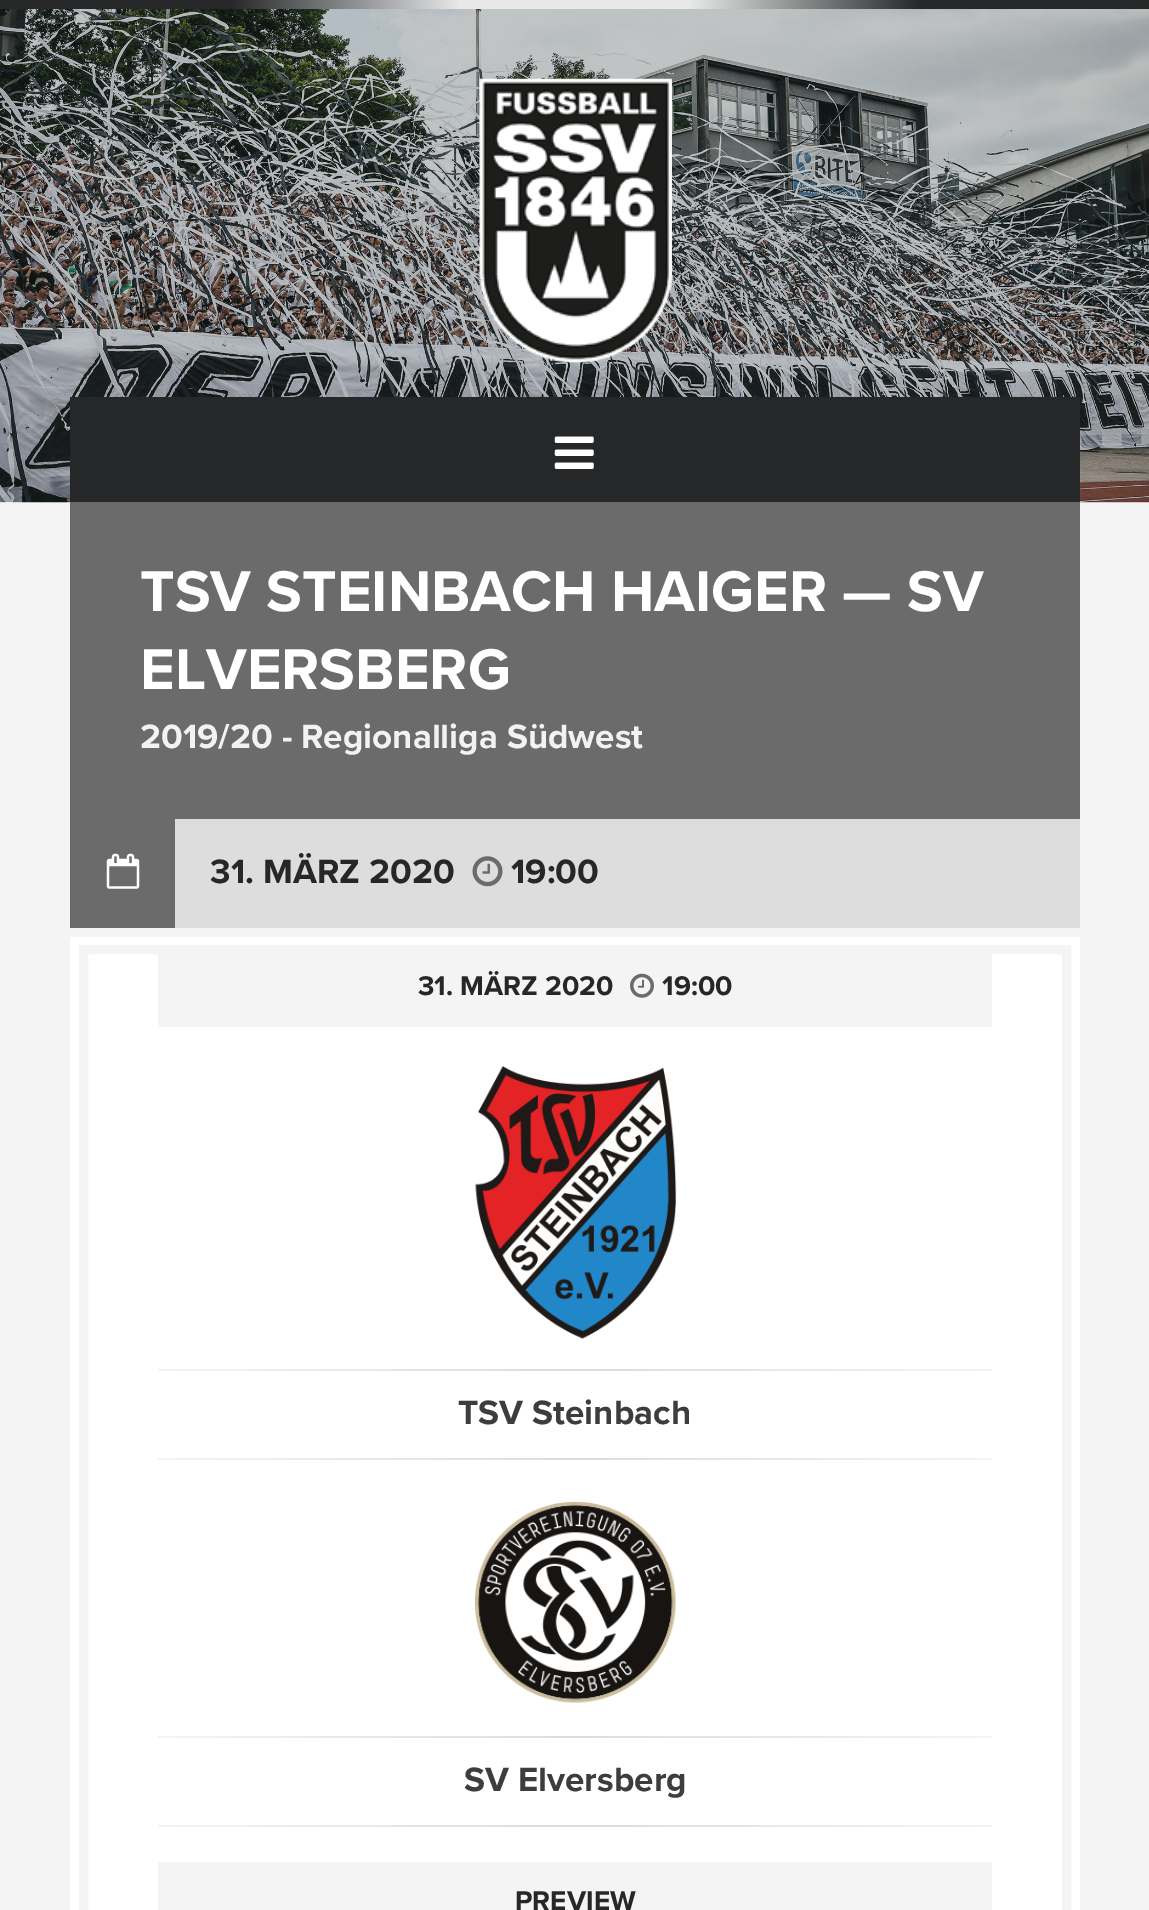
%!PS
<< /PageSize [1149 1910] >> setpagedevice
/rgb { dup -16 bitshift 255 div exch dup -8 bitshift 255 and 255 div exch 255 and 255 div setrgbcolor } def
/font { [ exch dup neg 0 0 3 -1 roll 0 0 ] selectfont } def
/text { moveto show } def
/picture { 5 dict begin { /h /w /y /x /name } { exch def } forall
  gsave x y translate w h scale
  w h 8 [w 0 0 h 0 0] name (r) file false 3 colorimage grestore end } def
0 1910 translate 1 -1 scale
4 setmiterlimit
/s1 { /ProximaNova-Bold 59.5 font 16#FFFFFF rgb } def
/s2 { /ProximaNova-Bold 35 font 16#F2F2F2 rgb } def
/s3 { /ProximaNova-Bold 35 font 16#262729 rgb } def
/s4 { /ProximaNova-Bold 28 font 16#262729 rgb } def
/s5 { /ProximaNova-Bold 35 font 16#3D3D3D rgb } def
16#F4F4F4 rgb
0 0 1149 1910 rectfill
gsave 0 0 moveto 1149 0 lineto 1149 9 lineto 0 9 lineto closepath clip newpath
<< /ShadingType 2 /ColorSpace /DeviceRGB /Coords [0 4.4 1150 4.4] /Extend [true true] /Function << /FunctionType 3 /Domain [0 1] /Functions [<< /FunctionType 2 /Domain [0 1] /C0 [0.149 0.153 0.161] /C1 [0.149 0.153 0.161] /N 1 >> << /FunctionType 2 /Domain [0 1] /C0 [0.149 0.153 0.161] /C1 [0.91 0.91 0.91] /N 1 >> << /FunctionType 2 /Domain [0 1] /C0 [0.91 0.91 0.91] /C1 [0.91 0.91 0.91] /N 1 >> << /FunctionType 2 /Domain [0 1] /C0 [0.91 0.91 0.91] /C1 [0.149 0.153 0.161] /N 1 >> << /FunctionType 2 /Domain [0 1] /C0 [0.149 0.153 0.161] /C1 [0.149 0.153 0.161] /N 1 >>] /Bounds [0.2 0.4 0.6 0.8] /Encode [0 1 0 1 0 1 0 1 0 1] >> >> shfill grestore
(pic1.raw) 0 9 1149 494 picture
(pic2.raw) 479 78 193 285 picture
16#262729 rgb
70 397 1010 105 rectfill
(pic3.raw) 554 436 40 33 picture
16#6B6B6B rgb
70 502 1010 317 rectfill
s1
(TSV STEINBACH HAIGER — SV) 140 611 text
(ELVERSBERG) 140 689 text
s2
(2019/20 - Regionalliga Südwest) 140 748 text
16#DDDDDD rgb
175 819 905 109 rectfill
16#6B6B6B rgb
70 819 105 109 rectfill
(pic4.raw) 106 853 34 36 picture
s3
(31. MÄRZ 2020) 210 883 text
(pic5.raw) 472 856 31 31 picture
(19:00) 511 883 text
16#FFFFFF rgb
70 937 1010 973 rectfill
16#F4F4F4 rgb
9 setlinewidth
83.5 949.5 983 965 rectstroke
158 954 834 73 rectfill
s4
(31. MÄRZ 2020) 418 995 text
(pic6.raw) 630 973 24 25 picture
(19:00) 662 995 text
(pic7.raw) 475 1066 202 273 picture
gsave 158 1369 moveto 992 1369 lineto 992 1371 lineto 158 1371 lineto closepath clip newpath
<< /ShadingType 2 /ColorSpace /DeviceRGB /Coords [158 1369 992 1369] /Extend [true true] /Function << /FunctionType 3 /Domain [0 1] /Functions [<< /FunctionType 2 /Domain [0 1] /C0 [0.957 0.957 0.957] /C1 [0.867 0.867 0.867] /N 1 >> << /FunctionType 2 /Domain [0 1] /C0 [0.867 0.867 0.867] /C1 [0.957 0.957 0.957] /N 1 >>] /Bounds [0.5] /Encode [0 1 0 1] >> >> shfill grestore
s5
(TSV Steinbach) 458 1424 text
gsave 158 1458 moveto 992 1458 lineto 992 1460 lineto 158 1460 lineto closepath clip newpath
<< /ShadingType 2 /ColorSpace /DeviceRGB /Coords [158 1459 992 1459] /Extend [true true] /Function << /FunctionType 3 /Domain [0 1] /Functions [<< /FunctionType 2 /Domain [0 1] /C0 [0.957 0.957 0.957] /C1 [0.867 0.867 0.867] /N 1 >> << /FunctionType 2 /Domain [0 1] /C0 [0.867 0.867 0.867] /C1 [0.957 0.957 0.957] /N 1 >>] /Bounds [0.5] /Encode [0 1 0 1] >> >> shfill grestore
(pic8.raw) 474 1501 202 202 picture
gsave 158 1736 moveto 992 1736 lineto 992 1738 lineto 158 1738 lineto closepath clip newpath
<< /ShadingType 2 /ColorSpace /DeviceRGB /Coords [158 1737 992 1737] /Extend [true true] /Function << /FunctionType 3 /Domain [0 1] /Functions [<< /FunctionType 2 /Domain [0 1] /C0 [0.957 0.957 0.957] /C1 [0.867 0.867 0.867] /N 1 >> << /FunctionType 2 /Domain [0 1] /C0 [0.867 0.867 0.867] /C1 [0.957 0.957 0.957] /N 1 >>] /Bounds [0.5] /Encode [0 1 0 1] >> >> shfill grestore
(SV Elversberg) 464 1791 text
gsave 158 1825 moveto 992 1825 lineto 992 1827 lineto 158 1827 lineto closepath clip newpath
<< /ShadingType 2 /ColorSpace /DeviceRGB /Coords [158 1826 992 1826] /Extend [true true] /Function << /FunctionType 3 /Domain [0 1] /Functions [<< /FunctionType 2 /Domain [0 1] /C0 [0.957 0.957 0.957] /C1 [0.867 0.867 0.867] /N 1 >> << /FunctionType 2 /Domain [0 1] /C0 [0.867 0.867 0.867] /C1 [0.957 0.957 0.957] /N 1 >>] /Bounds [0.5] /Encode [0 1 0 1] >> >> shfill grestore
16#F4F4F4 rgb
158 1862 834 48 rectfill
s4
(PREVIEW) 515 1910 text
showpage
